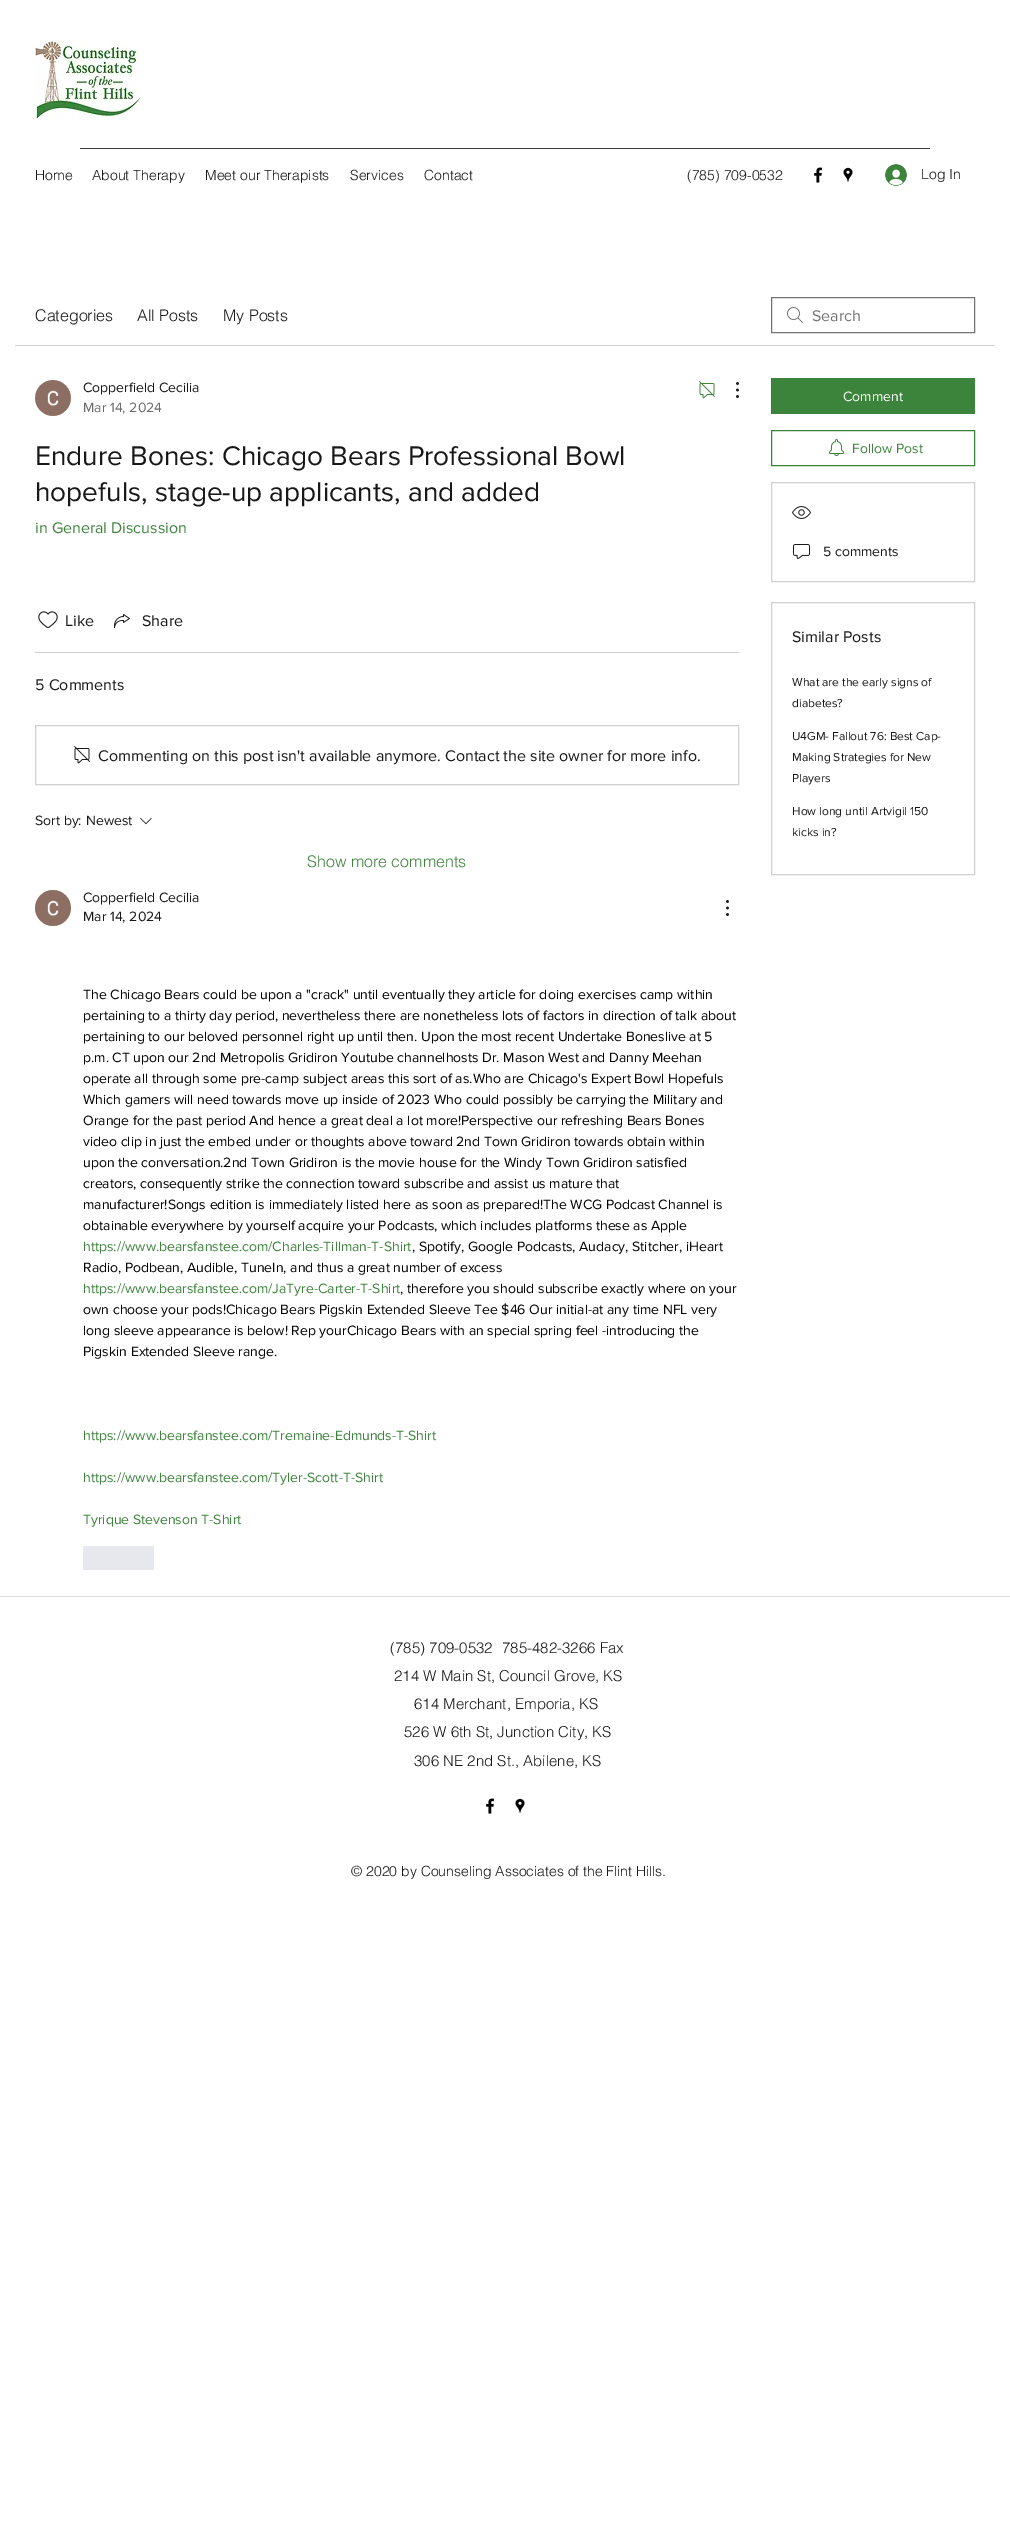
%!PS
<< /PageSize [1010 2526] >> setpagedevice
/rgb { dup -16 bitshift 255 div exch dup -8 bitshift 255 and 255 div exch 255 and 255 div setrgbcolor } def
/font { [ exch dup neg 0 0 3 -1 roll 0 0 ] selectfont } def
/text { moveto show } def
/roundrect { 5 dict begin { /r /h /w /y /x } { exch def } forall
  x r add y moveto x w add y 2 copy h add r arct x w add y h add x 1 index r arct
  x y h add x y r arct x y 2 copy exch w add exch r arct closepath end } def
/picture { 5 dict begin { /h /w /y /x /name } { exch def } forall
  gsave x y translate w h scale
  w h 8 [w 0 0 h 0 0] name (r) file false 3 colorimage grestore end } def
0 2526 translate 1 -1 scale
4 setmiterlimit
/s1 { /helvetica-Light 14 font 16#181818 rgb } def
/s2 { /helvetica-Light 16 font 16#181818 rgb } def
/s3 { /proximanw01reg-Regular 16 font 16#747474 rgb } def
/s4 { /proximanw01reg-Regular 14 font 16#181818 rgb } def
/s5 { /proximanw01reg-Regular 14 font 16#6B6B6B rgb } def
/s6 { /proximanw01reg-Regular 28 font 16#181818 rgb } def
/s7 { /proximanw01reg-Regular 16 font 16#3C843B rgb } def
/s8 { /proximanw01reg-Regular 16 font 16#181818 rgb } def
/s9 { /helvetica-Light 16 font 16#3C843B rgb } def
/s10 { /proximanw01reg-Regular 14 font 16#000000 rgb } def
/s11 { /proximanw01reg-Regular 14 font 16#3C843B rgb } def
/s12 { /proximanw01reg-Regular 14 font 16#FFFFFF rgb } def
/s13 { /proximanw01reg-Regular 12 font 16#181818 rgb } def
/s14 { /helvetica-Light 15 font 16#181818 rgb } def
16#FFFFFF rgb
0 0 1010 2526 rectfill
(pic1.raw) 35 40 106 80 picture
16#3B3B3B rgb
80 148 850 1 rectfill
s1
(Home) 35 180 text
(About Therapy) 92 180 text
(Meet our Therapists) 205 180 text
(Services) 350 180 text
(Contact) 424 180 text
(\(785\) 709-0532) 687 180 text
(pic2.raw) 814 167 9 16 picture
(pic3.raw) 843 167 10 15 picture
(pic4.raw) 885 164 22 22 picture
(Log In) 921 179 text
16#D1D1D1 rgb
15 345 980 1 rectfill
s2
(Categories) 35 321 text
(All Posts) 137 321 text
(My Posts) 223 321 text
(pic5.raw) 787 307 16 16 picture
16#747474 rgb
771.5 297.5 203 35 rectstroke
s3
(Search) 812 321 text
(pic6.raw) 35 380 36 36 picture
s4
(Copperfield Cecilia) 83 392 text
s5
(Mar 14, 2024) 83 412 text
(pic7.raw) 699 381 16 18 picture
(pic8.raw) 736 382 3 16 picture
s6
(Endure Bones: Chicago Bears Professional Bowl) 35 465 text
(hopefuls, stage-up applicants, and added) 35 501 text
s7
(in General Discussion) 35 533 text
(pic9.raw) 38 611 20 18 picture
s8
(Like) 65 626 text
(pic10.raw) 114 614 16 14 picture
(Share) 142 626 text
16#D1D1D1 rgb
35 652 704 1 rectfill
s8
(5 Comments) 35 690 text
16#D1D1D1 rgb
35.5 725.5 703 59 rectstroke
(pic11.raw) 74 746 16 18 picture
s8
(Commenting on this post isn't available anymore. Contact the site owner for more info.) 98 761 text
s4
(Sort by:) 35 825 text
(Newest) 86 825 text
(pic12.raw) 140 817 12 8 picture
s9
(Show more comments) 307 867 text
(pic13.raw) 35 890 36 36 picture
s4
(Copperfield Cecilia) 83 902 text
(Mar 14, 2024) 83 921 text
(pic14.raw) 726 900 3 16 picture
s10
(The Chicago Bears could be upon a "crack" until eventually they article for doing exercises camp within) 83 999 text
(pertaining to a thirty day period, nevertheless there are nonetheless lots of factors in direction of talk about) 83 1020 text
(pertaining to our beloved personnel right up until then. Upon the most recent Undertake Boneslive at 5) 83 1041 text
(p.m. CT upon our 2nd Metropolis Gridiron Youtube channelhosts Dr. Mason West and Danny Meehan) 83 1062 text
(operate all through some pre-camp subject areas this sort of as.Who are Chicago's Expert Bowl Hopefuls) 83 1083 text
(Which gamers will need towards move up inside of 2023 Who could possibly be carrying the Military and) 83 1104 text
(Orange for the past period And hence a great deal a lot more!Perspective our refreshing Bears Bones) 83 1125 text
(video clip in just the embed under or thoughts above toward 2nd Town Gridiron towards obtain within) 83 1146 text
(upon the conversation.2nd Town Gridiron is the movie house for the Windy Town Gridiron satisfied) 83 1167 text
(creators, consequently strike the connection toward subscribe and assist us mature that) 83 1188 text
(manufacturer!Songs edition is immediately listed here as soon as prepared!The WCG Podcast Channel is) 83 1209 text
(obtainable everywhere by yourself acquire your Podcasts, which includes platforms these as Apple) 83 1230 text
s11
(https://www.bearsfanstee.com/Charles-Tillman-T-Shirt) 83 1251 text
s10
(, Spotify, Google Podcasts, Audacy, Stitcher, iHeart) 412 1251 text
(Radio, Podbean, Audible, TuneIn, and thus a great number of excess) 83 1272 text
s11
(https://www.bearsfanstee.com/JaTyre-Carter-T-Shirt) 83 1293 text
s10
(, therefore you should subscribe exactly where on your) 400 1293 text
(own choose your pods!Chicago Bears Pigskin Extended Sleeve Tee $46 Our initial-at any time NFL very) 83 1314 text
(long sleeve appearance is below! Rep yourChicago Bears with an special spring feel -introducing the) 83 1335 text
(Pigskin Extended Sleeve range.) 83 1356 text
s11
(https://www.bearsfanstee.com/Tremaine-Edmunds-T-Shirt) 83 1440 text
(https://www.bearsfanstee.com/Tyler-Scott-T-Shirt) 83 1482 text
(Tyrique Stevenson T-Shirt) 83 1524 text
16#E7E8ED rgb
83 1546 71 24 2 roundrect fill
16#3C843B rgb
771 378 204 36 rectfill
s12
(Comment) 843 401 text
16#3C843B rgb
771.5 430.5 203 35 rectstroke
(pic15.raw) 829 439 15 17 picture
(Follow Post) 852 453 text
16#D1D1D1 rgb
771.5 482.5 203 99 rectstroke
(pic16.raw) 792 506 19 13 picture
(pic17.raw) 793 544 17 15 picture
s4
(5 comments) 823 556 text
16#D1D1D1 rgb
771.5 602.5 203 272 rectstroke
s8
(Similar Posts) 792 642 text
s13
(What are the early signs of) 792 686 text
(diabetes?) 792 707 text
(U4GM- Fallout 76: Best Cap-) 792 740 text
(Making Strategies for New) 792 761 text
(Players) 792 782 text
(How long until Artvigil 150) 792 815 text
(kicks in?) 792 836 text
16#DCDCDC rgb
0 1596 1010 1 rectfill
s14
(\(785\) 709-0532) 390 1653 text
(785-482-3266 Fax) 502 1653 text
(214 W Main St, Council Grove, KS) 394 1681 text
(614 Merchant, Emporia, KS) 414 1709 text
(526 W 6th St, Junction City, KS) 404 1737 text
(306 NE 2nd St., Abilene, KS) 414 1766 text
(pic2.raw) 486 1798 9 16 picture
(pic3.raw) 515 1798 10 15 picture
s1
(© 2020 by Counseling Associates of the Flint Hills.) 351 1876 text
showpage
